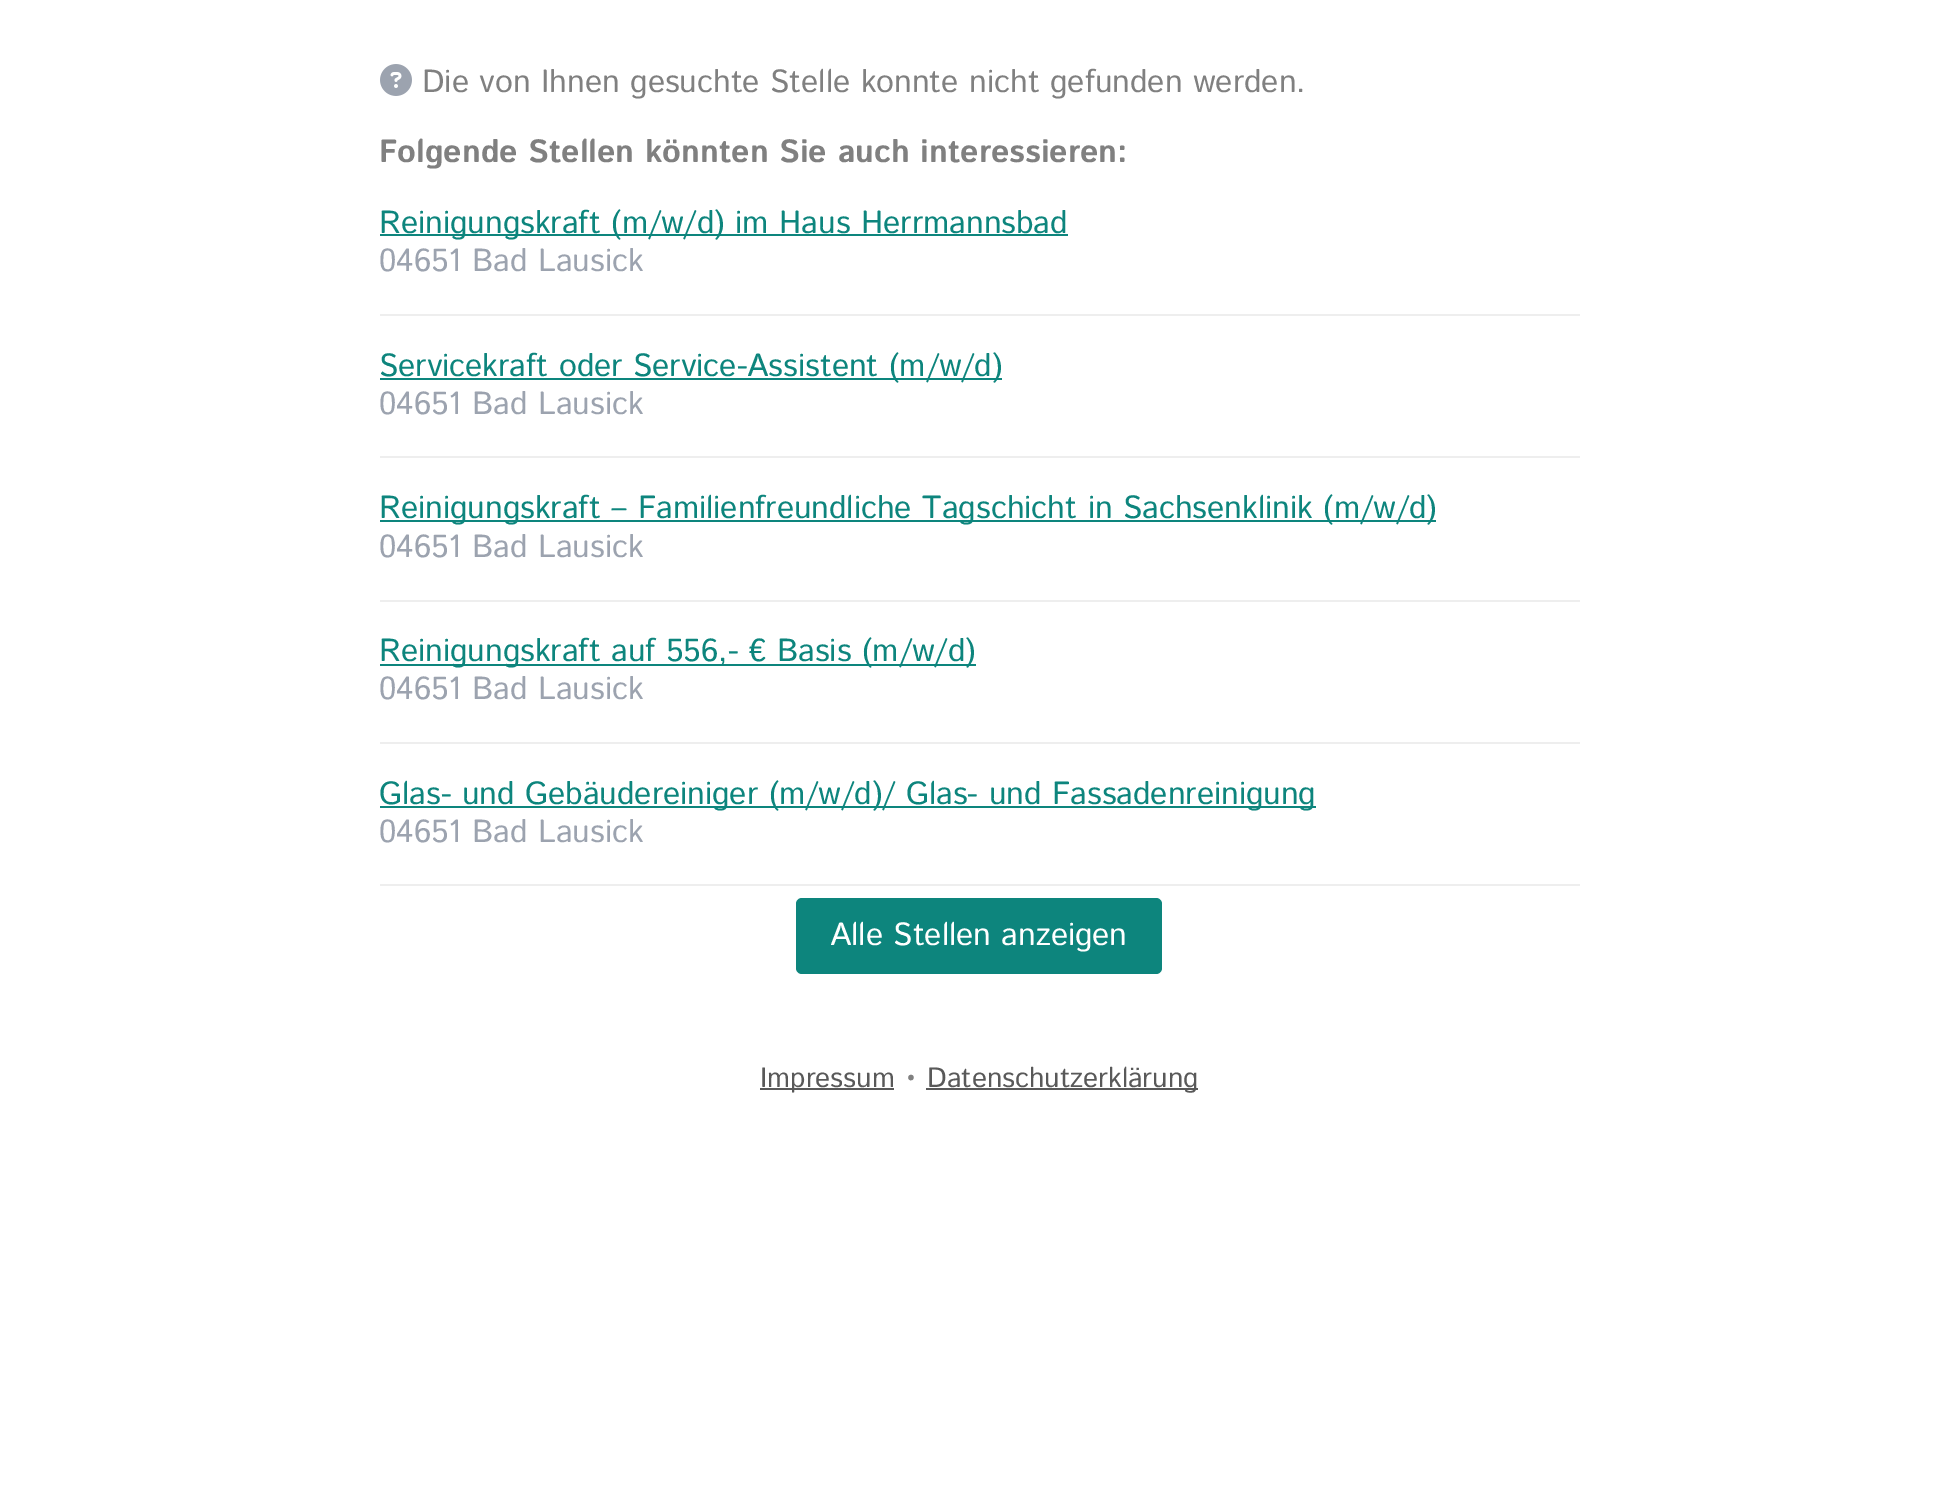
%!PS
<< /PageSize [1957 1508] >> setpagedevice
/rgb { dup -16 bitshift 255 div exch dup -8 bitshift 255 and 255 div exch 255 and 255 div setrgbcolor } def
/font { [ exch dup neg 0 0 3 -1 roll 0 0 ] selectfont } def
/text { moveto show } def
/roundrect { 5 dict begin { /r /h /w /y /x } { exch def } forall
  x r add y moveto x w add y 2 copy h add r arct x w add y h add x 1 index r arct
  x y h add x y r arct x y 2 copy exch w add exch r arct closepath end } def
/picture { 5 dict begin { /h /w /y /x /name } { exch def } forall
  gsave x y translate w h scale
  w h 8 [w 0 0 h 0 0] name (r) file false 3 colorimage grestore end } def
0 1508 translate 1 -1 scale
4 setmiterlimit
/s1 { /IstokWeb-Regular 32 font 16#808080 rgb } def
/s2 { /IstokWeb-Bold 32 font 16#808080 rgb } def
/s3 { /IstokWeb-Regular 32 font 16#0D857D rgb } def
/s4 { /IstokWeb-Regular 32 font 16#9CA3AF rgb } def
/s5 { /IstokWeb-Regular 32 font 16#FFFFFF rgb } def
/s6 { /IstokWeb-Regular 28 font 16#595959 rgb } def
/s7 { /IstokWeb-Regular 28 font 16#808080 rgb } def
16#FFFFFF rgb
0 0 1957 1508 rectfill
(pic1.raw) 380 64 32 32 picture
s1
(Die von Ihnen gesuchte Stelle konnte nicht gefunden werden.) 422 92 text
s2
(Folgende Stellen könnten Sie auch interessieren:) 379 162 text
16#EEEEEE rgb
380 314 1200 2 rectfill
16#0D857D rgb
380 234 688 2 rectfill
s3
(Reinigungskraft \(m/w/d\) im Haus Herrmannsbad) 379 233 text
s4
(04651 Bad Lausick) 379 271 text
16#EEEEEE rgb
380 456 1200 2 rectfill
16#0D857D rgb
380 378 622 2 rectfill
(Servicekraft oder Service-Assistent \(m/w/d\)) 379 376 text
s4
(04651 Bad Lausick) 379 414 text
16#EEEEEE rgb
380 600 1200 2 rectfill
16#0D857D rgb
380 520 1056 2 rectfill
(Reinigungskraft – Familienfreundliche Tagschicht in Sachsenklinik \(m/w/d\)) 379 518 text
s4
(04651 Bad Lausick) 379 557 text
16#EEEEEE rgb
380 742 1200 2 rectfill
16#0D857D rgb
380 664 596 2 rectfill
(Reinigungskraft auf 556,- € Basis \(m/w/d\)) 379 661 text
s4
(04651 Bad Lausick) 379 699 text
16#EEEEEE rgb
380 884 1200 2 rectfill
16#0D857D rgb
380 806 936 2 rectfill
(Glas- und Gebäudereiniger \(m/w/d\)/ Glas- und Fassadenreinigung) 379 804 text
s4
(04651 Bad Lausick) 379 842 text
16#0D857D rgb
796 898 366 76 6 roundrect fill
s5
(Alle Stellen anzeigen) 830 945 text
16#595959 rgb
760 1088 134 2 rectfill
s6
(Impressum) 760 1087 text
s7
(•) 904 1087 text
16#595959 rgb
926 1088 272 2 rectfill
(Datenschutzerklärung) 927 1087 text
showpage
